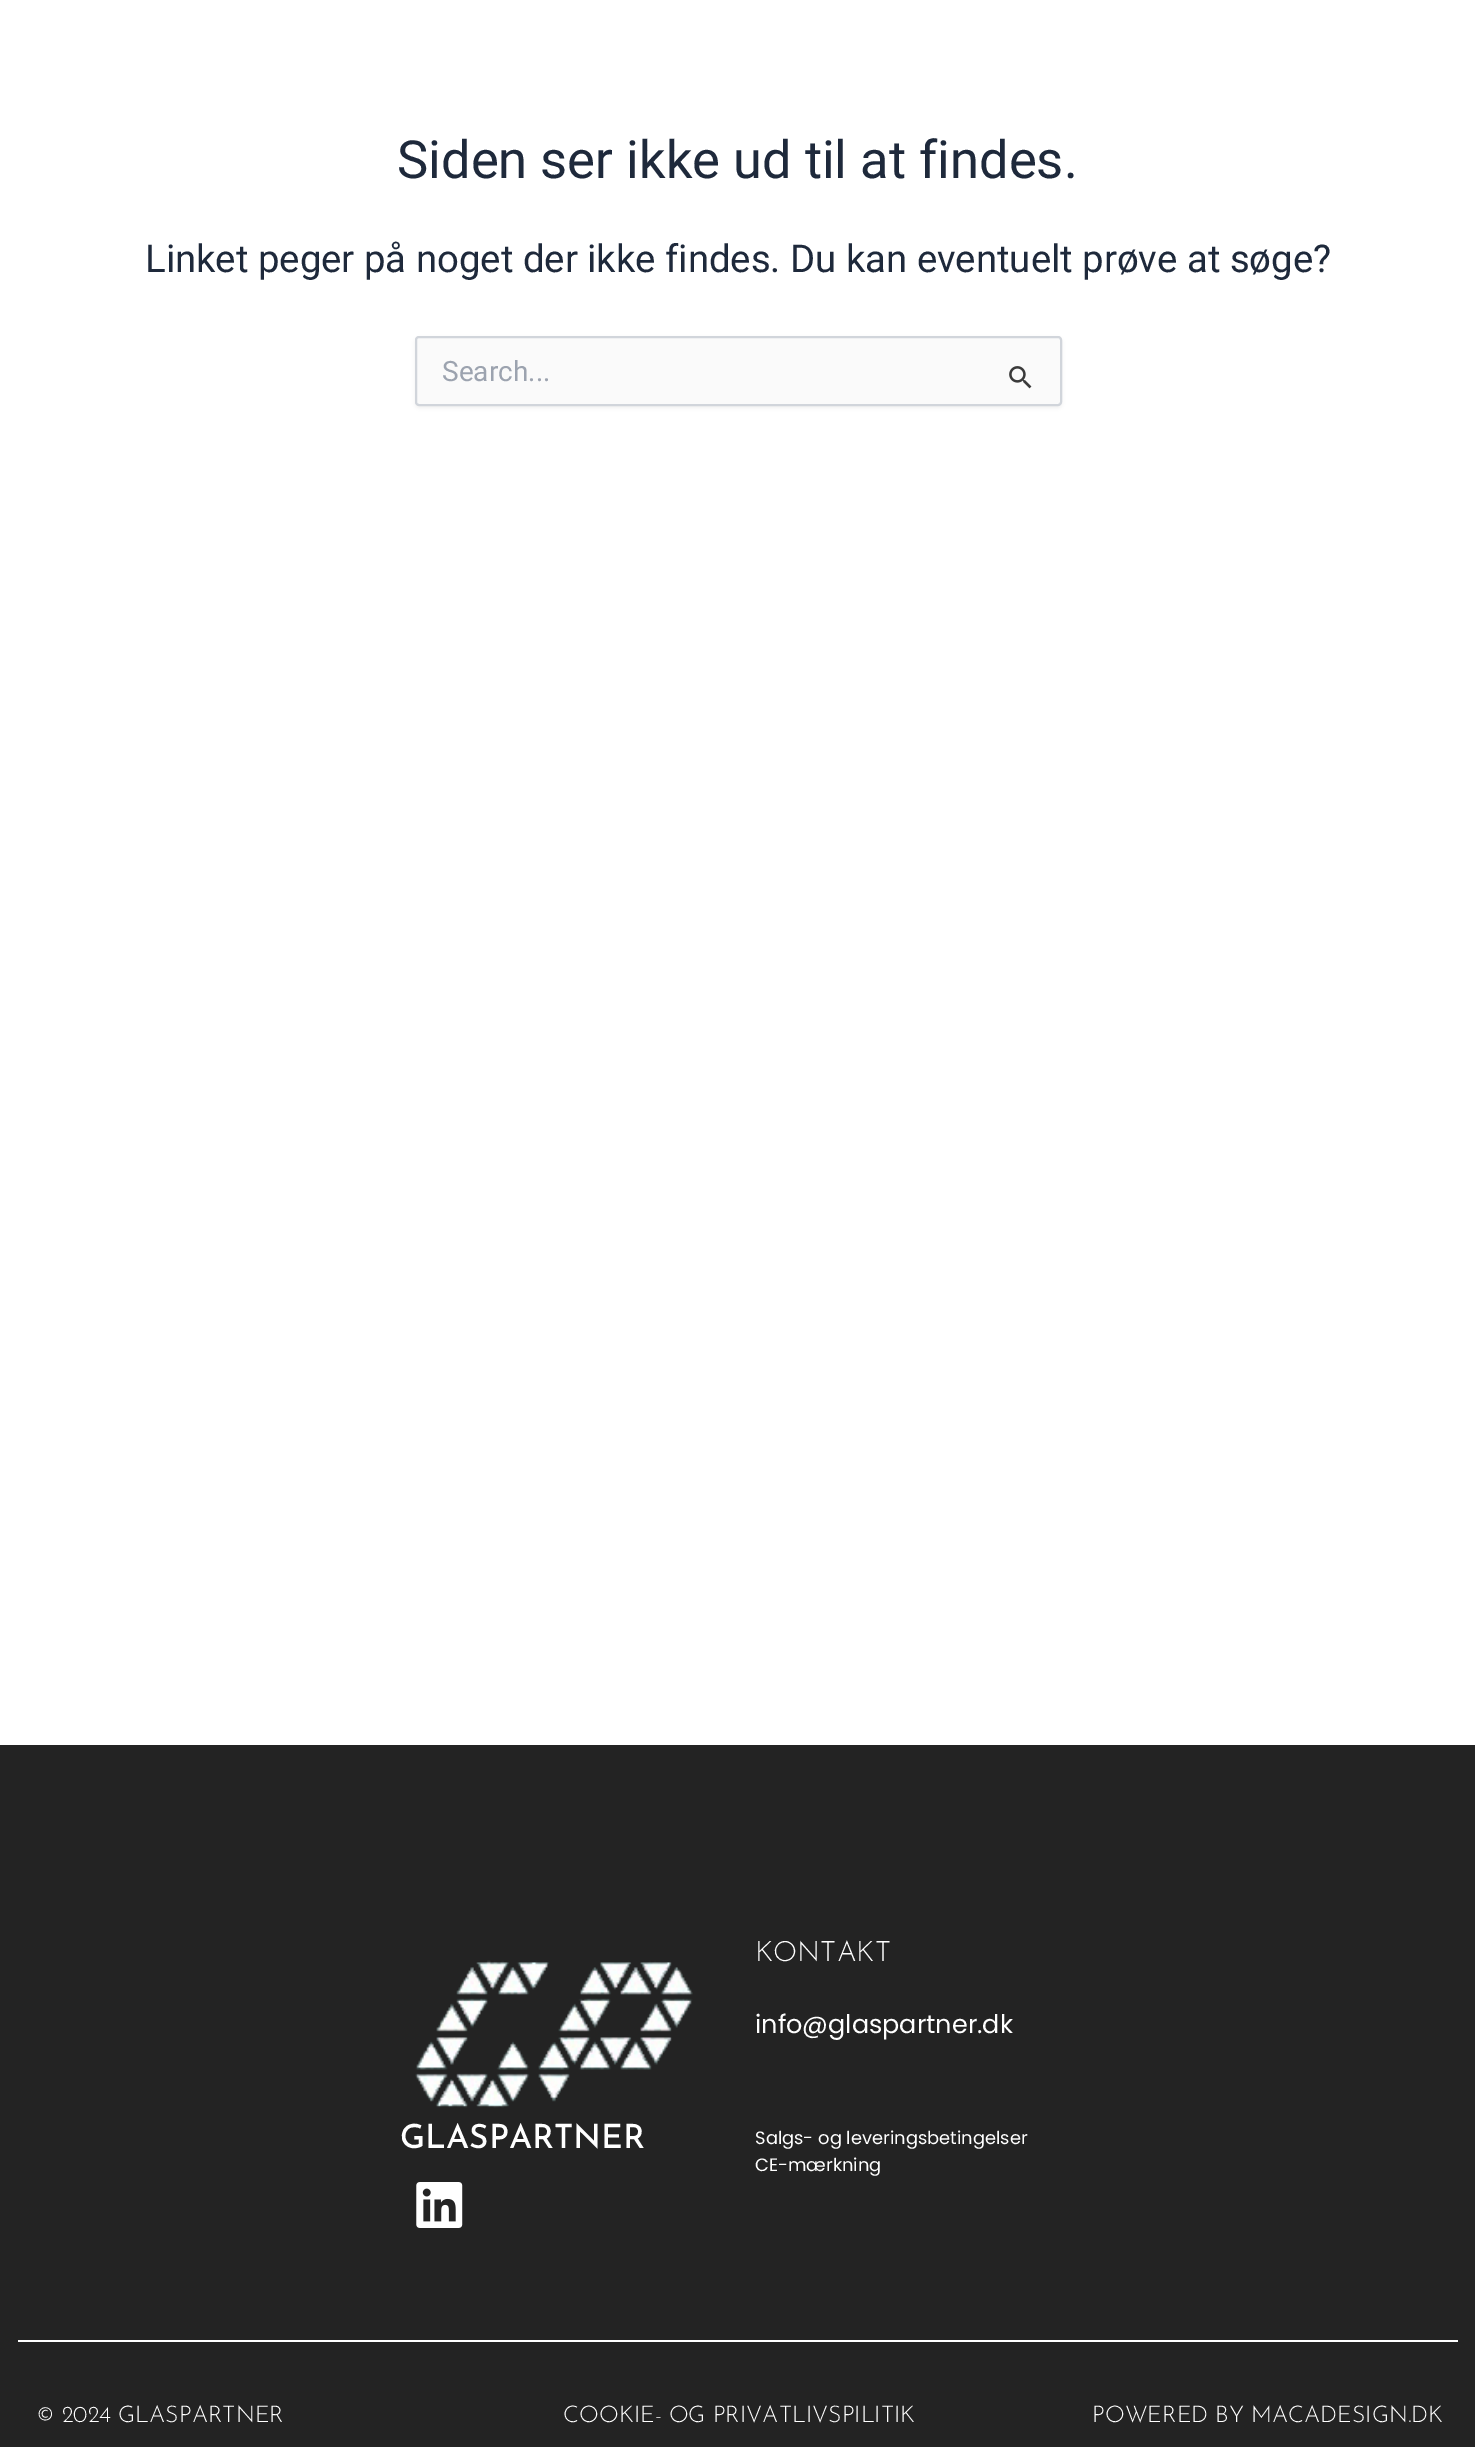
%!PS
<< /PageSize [1475 2447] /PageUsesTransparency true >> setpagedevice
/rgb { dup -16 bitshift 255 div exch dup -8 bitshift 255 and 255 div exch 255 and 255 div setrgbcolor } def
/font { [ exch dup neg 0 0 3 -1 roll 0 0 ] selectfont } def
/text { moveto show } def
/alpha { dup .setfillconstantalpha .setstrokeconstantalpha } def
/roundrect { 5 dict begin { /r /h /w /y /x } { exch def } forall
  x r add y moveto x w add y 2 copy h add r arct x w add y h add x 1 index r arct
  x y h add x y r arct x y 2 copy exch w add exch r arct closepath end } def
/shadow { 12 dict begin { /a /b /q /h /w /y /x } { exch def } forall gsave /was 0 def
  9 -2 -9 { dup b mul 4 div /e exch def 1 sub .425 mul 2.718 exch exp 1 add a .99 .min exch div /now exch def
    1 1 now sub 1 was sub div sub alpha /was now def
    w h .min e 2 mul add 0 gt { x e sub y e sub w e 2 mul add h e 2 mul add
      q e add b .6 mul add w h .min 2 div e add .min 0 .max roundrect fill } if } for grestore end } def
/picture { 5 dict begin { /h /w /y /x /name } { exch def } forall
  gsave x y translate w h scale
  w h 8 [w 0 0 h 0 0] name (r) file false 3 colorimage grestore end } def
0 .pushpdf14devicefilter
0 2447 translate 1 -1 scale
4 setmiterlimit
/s1 { /Roboto-Regular 52.5 font 16#1E293B rgb } def
/s2 { /Roboto-Regular 38.3 font 16#1E293B rgb } def
/s3 { /Roboto-Regular 28 font 16#9CA3AF rgb } def
/s4 { /JosefinSans-Medium 33.25 font 16#FFFFFF rgb } def
/s5 { /JosefinSans-Light 28 font 16#FFFFFF rgb } def
/s6 { /Poppins-Regular 25.5 font 16#FFFFFF rgb } def
/s7 { /Poppins-Regular 17.9 font 16#FFFFFF rgb } def
/s8 { /JosefinSans-Light 23 font 16#FFFFFF rgb } def
16#FFFFFF rgb
0 0 1475 2447 rectfill
s1
(Siden ser ikke ud til at findes.) 397 178 text
s2
(Linket peger på noget der ikke findes. Du kan eventuelt prøve at søge?) 145 272 text
16#000000 rgb
415 338 647 70 4 2 0.05 shadow
16#FAFAFA rgb
416 337 645 68 3 roundrect gsave fill grestore
16#D1D5DB rgb
2 setlinewidth
stroke
s3
(Search...) 442 381 text
(pic1.raw) 1009 366 23 23 picture
16#232323 rgb
0 1745 1475 702 rectfill
(pic2.raw) 415 1960 278 148 picture
s4
(GLASPARTNER) 400 2148 text
(pic3.raw) 416 2182 47 46 picture
s5
(KONTAKT) 755 1961 text
s6
(info@glaspartner.dk) 755 2033 text
s7
(Salgs- og leveringsbetingelser) 755 2144 text
(CE-mærkning) 755 2171 text
18 2340 1440 2 rectfill
s8
(© 2024 GLASPARTNER) 36 2422 text
(COOKIE- OG PRIVATLIVSPILITIK) 563 2422 text
(POWERED BY MACADESIGN.DK) 1092 2422 text
.poppdf14devicefilter showpage
